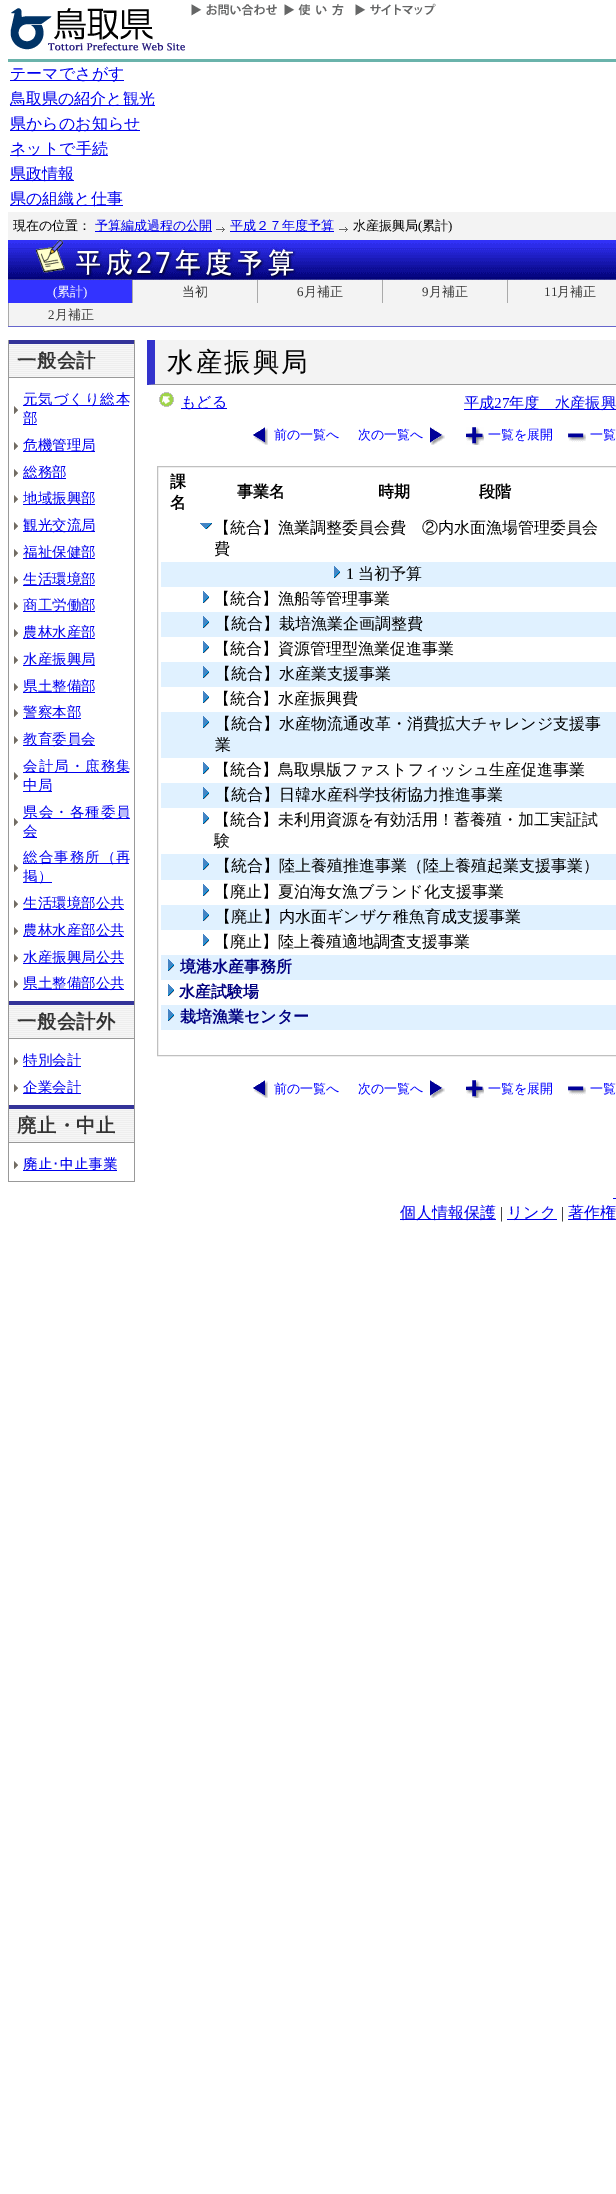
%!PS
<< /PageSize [616 2194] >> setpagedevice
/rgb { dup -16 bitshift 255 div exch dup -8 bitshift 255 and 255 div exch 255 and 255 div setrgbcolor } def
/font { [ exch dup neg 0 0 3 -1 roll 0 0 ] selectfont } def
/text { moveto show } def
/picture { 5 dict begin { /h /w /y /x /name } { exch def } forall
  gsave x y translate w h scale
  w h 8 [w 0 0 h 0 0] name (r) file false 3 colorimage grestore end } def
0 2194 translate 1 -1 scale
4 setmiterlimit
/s1 { /WenQuanYiZenHei-Medium 16 font 16#0000EE rgb } def
/s2 { /WenQuanYiZenHei-Medium 13 font 16#000000 rgb } def
/s3 { /WenQuanYiZenHei-Medium 13 font 16#0000EE rgb } def
/s4 { /LiberationSerif-Regular 13 font 16#000000 rgb } def
/s5 { /LiberationSerif-Regular 13 font 16#FFFFFF rgb } def
/s6 { /WenQuanYiZenHei-Medium 13 font 16#FFFFFF rgb } def
/s7 { /WenQuanYiZenHei-Medium 13 font 16#333333 rgb } def
/s8 { /LiberationSerif-Regular 13 font 16#333333 rgb } def
/s9 { /WenQuanYiZenHei-Medium 14.5 font 16#0000EE rgb } def
/s10 { /IPAGothic-Regular 14.5 font 16#0000EE rgb } def
/s11 { /WenQuanYiZenHei-Medium 15 font 16#0000EE rgb } def
/s12 { /WenQuanYiZenHei-Medium 15.25 font 16#0000EE rgb } def
/s13 { /LiberationSerif-Regular 15.25 font 16#0000EE rgb } def
/s14 { /WenQuanYiZenHei-Medium 13 font 16#0000FF rgb } def
/s15 { /WenQuanYiZenHei-Bold 16 font 16#000000 rgb } def
/s16 { /WenQuanYiZenHei-Medium 16 font 16#000000 rgb } def
/s17 { /LiberationSerif-Regular 16 font 16#000000 rgb } def
/s18 { /WenQuanYiZenHei-Bold 16 font 16#000080 rgb } def
16#FFFFFF rgb
0 0 616 2194 rectfill
(pic1.raw) 10 8 175 43 picture
(pic2.raw) 191 4 86 12 picture
(pic3.raw) 284 4 60 12 picture
(pic4.raw) 355 3 81 13 picture
16#6AB3AB rgb
8 59 608 3 rectfill
16#0000EE rgb
10 80 114 1 rectfill
s1
(テーマでさがす) 10 79 text
10 105 145 1 rectfill
(鳥取県の紹介と観光) 10 104 text
10 130 130 1 rectfill
(県からのお知らせ) 10 129 text
10 155 98 1 rectfill
(ネットで手続) 10 154 text
10 180 64 1 rectfill
(県政情報) 10 179 text
10 205 113 1 rectfill
(県の組織と仕事) 10 204 text
16#F3F3F3 rgb
8 212 608 28 rectfill
s2
(現在の位置：) 13 230 text
16#0000EE rgb
95 231 117 1 rectfill
(予算編成過程の公開) 95 230 text
(pic5.raw) 216 227 9 5 picture
230 231 104 1 rectfill
(平成２７年度予算) 230 230 text
(pic5.raw) 339 227 9 5 picture
s2
(水産振興局) 353 230 text
s4
(\() 418 230 text
s2
(累計) 422 230 text
s4
(\)) 448 230 text
(pic6.raw) 8 240 608 40 picture
16#F3F3F3 rgb
9 280 607 46 rectfill
16#6666CC rgb
8 326 608 1 rectfill
16#3333FF rgb
8 280 124 23 rectfill
s5
(\() 53 296 text
s6
(累計) 57 296 text
s5
(\)) 83 296 text
16#AAAAAA rgb
132 280 1 23 rectfill
s7
(当初) 182 296 text
16#AAAAAA rgb
257 280 1 23 rectfill
s8
(6) 297 296 text
s7
(月補正) 304 296 text
16#AAAAAA rgb
382 280 1 23 rectfill
s8
(9) 422 296 text
s7
(月補正) 429 296 text
16#AAAAAA rgb
507 280 1 23 rectfill
s8
(11) 544 296 text
s7
(月補正) 557 296 text
16#AAAAAA rgb
8 303 1 23 rectfill
s8
(2) 48 319 text
s7
(月補正) 55 319 text
16#999999 rgb
134 340 1 842 rectfill
8 1181 127 1 rectfill
8 340 1 842 rectfill
(pic7.raw) 9 344 125 33 picture
16#333399 rgb
9 340 125 4 rectfill
16#999999 rgb
9 377 125 1 rectfill
/WenQuanYiZenHei-Bold 19.25 font
16#333333 rgb
17 367 moveto 0.5 0 (一般会計) ashow
(pic8.raw) 14 406 4 8 picture
16#0000EE rgb
23 405 106 1 rectfill
/WenQuanYiZenHei-Medium 14.5 font
23 404 moveto 0.75 0 (元気づくり総本) ashow
23 424 14 1 rectfill
(部) 23 423 text
(pic8.raw) 14 442 4 8 picture
23 451 72 1 rectfill
(危機管理局) 23 450 text
(pic8.raw) 14 469 4 8 picture
23 478 43 1 rectfill
(総務部) 23 477 text
(pic8.raw) 14 495 4 8 picture
23 504 72 1 rectfill
(地域振興部) 23 503 text
(pic8.raw) 14 522 4 8 picture
23 531 72 1 rectfill
(観光交流局) 23 530 text
(pic8.raw) 14 549 4 8 picture
23 558 72 1 rectfill
(福祉保健部) 23 557 text
(pic8.raw) 14 576 4 8 picture
23 585 72 1 rectfill
(生活環境部) 23 584 text
(pic8.raw) 14 602 4 8 picture
23 611 72 1 rectfill
(商工労働部) 23 610 text
(pic8.raw) 14 629 4 8 picture
23 638 72 1 rectfill
(農林水産部) 23 637 text
(pic8.raw) 14 656 4 8 picture
23 665 72 1 rectfill
(水産振興局) 23 664 text
(pic8.raw) 14 683 4 8 picture
23 692 72 1 rectfill
(県土整備部) 23 691 text
(pic8.raw) 14 709 4 8 picture
23 718 58 1 rectfill
(警察本部) 23 717 text
(pic8.raw) 14 736 4 8 picture
23 745 72 1 rectfill
(教育委員会) 23 744 text
(pic8.raw) 14 772 4 8 picture
23 772 106 1 rectfill
23 771 moveto 1 0 (会計局・庶務集) ashow
23 791 29 1 rectfill
(中局) 23 790 text
(pic8.raw) 14 818 4 8 picture
23 818 106 1 rectfill
23 817 moveto 1 0 (県会・各種委員) ashow
23 837 14 1 rectfill
(会) 23 836 text
(pic8.raw) 14 864 4 8 picture
23 863 106 1 rectfill
23 862 moveto 1 0 (総合事務所（再) ashow
23 882 29 1 rectfill
(掲）) 23 881 text
(pic8.raw) 14 900 4 8 picture
23 909 101 1 rectfill
(生活環境部公共) 23 908 text
(pic8.raw) 14 927 4 8 picture
23 936 101 1 rectfill
(農林水産部公共) 23 935 text
(pic8.raw) 14 954 4 8 picture
23 963 101 1 rectfill
(水産振興局公共) 23 962 text
(pic8.raw) 14 980 4 8 picture
23 989 101 1 rectfill
(県土整備部公共) 23 988 text
(pic7.raw) 9 1005 125 33 picture
16#333399 rgb
9 1001 125 4 rectfill
16#999999 rgb
9 1038 125 1 rectfill
/WenQuanYiZenHei-Bold 19.25 font
16#333333 rgb
17 1028 moveto 0.5 0 (一般会計外) ashow
(pic8.raw) 14 1057 4 8 picture
16#0000EE rgb
23 1066 58 1 rectfill
s9
(特別会計) 23 1065 text
(pic8.raw) 14 1084 4 8 picture
23 1093 58 1 rectfill
(企業会計) 23 1092 text
(pic7.raw) 9 1109 125 33 picture
16#333399 rgb
9 1105 125 4 rectfill
16#999999 rgb
9 1142 125 1 rectfill
/WenQuanYiZenHei-Bold 19.25 font
16#333333 rgb
17 1132 moveto 0.5 0 (廃止・中止) ashow
(pic8.raw) 14 1161 4 8 picture
s10
(廃止･中止事業) 23 1169 text
23 1170 94 1 rectfill
16#F3F3F3 rgb
147 340 469 45 rectfill
16#999999 rgb
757 385 moveto 147 385 lineto 155 384 lineto 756 384 lineto closepath fill
16#3333CC rgb
147 385 moveto 147 340 lineto 155 340 lineto 155 384 lineto closepath fill
/WenQuanYiZenHei-Medium 26.5 font
16#000000 rgb
167 371 moveto 2 0 (水産振興局) ashow
(pic9.raw) 159 392 15 15 picture
16#0000EE rgb
181 408 46 1 rectfill
s11
(もどる) 181 407 text
464 409 152 1 rectfill
s12
(平成) 464 408 text
s13
(27) 494 408 text
s12
(年度　水産振興) 509 408 text
(pic10.raw) 253 427 15 18 picture
s14
(前の一覧へ) 274 439 text
(次の一覧へ) 358 439 text
(pic11.raw) 430 427 15 18 picture
(pic12.raw) 466 427 18 18 picture
(一覧を展開) 488 439 text
(pic13.raw) 568 433 18 9 picture
(一覧) 590 439 text
16#C0C0C0 rgb
157.5 466.5 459 589 rectstroke
s15
(課) 170 487 text
(名) 170 508 text
(事業名) 237 497 text
(時期) 378 497 text
(段階) 479 497 text
(pic14.raw) 200 523 12 6 picture
s16
(【統合】漁業調整委員会費　②内水面漁場管理委員会) 214 533 text
(費) 214 554 text
16#E0F1FF rgb
161 562 455 25 rectfill
(pic15.raw) 334 566 6 12 picture
s17
(1) 346 579 text
s16
(当初予算) 358 579 text
(pic16.raw) 203 591 6 12 picture
(【統合】漁船等管理事業) 214 604 text
16#E0F1FF rgb
161 612 455 25 rectfill
(pic15.raw) 203 616 6 12 picture
s16
(【統合】栽培漁業企画調整費) 215 629 text
(pic16.raw) 203 641 6 12 picture
(【統合】資源管理型漁業促進事業) 214 654 text
16#E0F1FF rgb
161 662 455 25 rectfill
(pic15.raw) 203 666 6 12 picture
s16
(【統合】水産業支援事業) 215 679 text
(pic16.raw) 203 691 6 12 picture
(【統合】水産振興費) 214 704 text
16#E0F1FF rgb
161 712 455 46 rectfill
(pic15.raw) 203 716 6 12 picture
s16
(【統合】水産物流通改革・消費拡大チャレンジ支援事) 215 729 text
(業) 215 750 text
(pic16.raw) 203 762 6 12 picture
(【統合】鳥取県版ファストフィッシュ生産促進事業) 214 775 text
16#E0F1FF rgb
161 783 455 25 rectfill
(pic15.raw) 203 787 6 12 picture
s16
(【統合】日韓水産科学技術協力推進事業) 215 800 text
(pic16.raw) 203 812 6 12 picture
(【統合】未利用資源を有効活用！蓄養殖・加工実証試) 214 825 text
(験) 214 846 text
16#E0F1FF rgb
161 854 455 26 rectfill
(pic15.raw) 203 858 6 12 picture
s16
(【統合】陸上養殖推進事業（陸上養殖起業支援事業）) 215 871 text
(pic16.raw) 203 884 6 12 picture
(【廃止】夏泊海女漁ブランド化支援事業) 214 897 text
16#E0F1FF rgb
161 905 455 25 rectfill
(pic15.raw) 203 909 6 12 picture
s16
(【廃止】内水面ギンザケ稚魚育成支援事業) 215 922 text
(pic16.raw) 203 934 6 12 picture
(【廃止】陸上養殖適地調査支援事業) 214 947 text
16#E0F1FF rgb
161 955 455 25 rectfill
(pic15.raw) 168 959 6 12 picture
s18
(境港水産事務所) 180 972 text
(pic16.raw) 168 984 6 12 picture
(水産試験場) 179 997 text
16#E0F1FF rgb
161 1005 455 25 rectfill
(pic15.raw) 168 1009 6 12 picture
s18
(栽培漁業センター) 180 1022 text
(pic10.raw) 253 1080 15 18 picture
s14
(前の一覧へ) 274 1093 text
(次の一覧へ) 358 1093 text
(pic11.raw) 430 1080 15 18 picture
(pic12.raw) 466 1080 18 18 picture
(一覧を展開) 488 1093 text
(pic13.raw) 568 1086 18 9 picture
(一覧) 590 1093 text
16#0000EE rgb
613 1198 3 1 rectfill
400 1219 96 1 rectfill
s1
(個人情報保護) 400 1218 text
s17
(|) 500 1218 text
16#0000EE rgb
507 1219 50 1 rectfill
s1
(リンク) 507 1218 text
s17
(|) 561 1218 text
16#0000EE rgb
568 1219 48 1 rectfill
s1
(著作権) 568 1218 text
showpage
